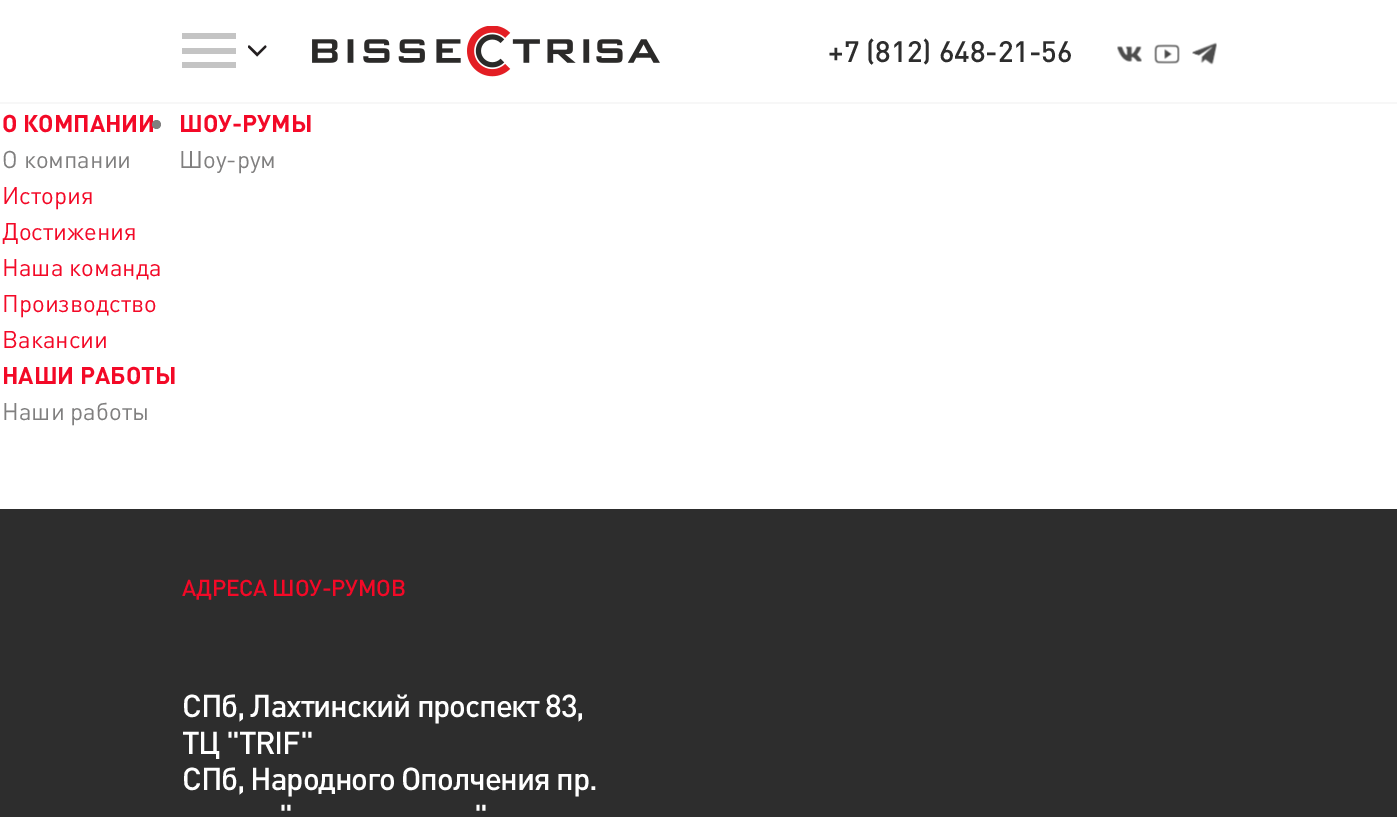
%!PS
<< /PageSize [1397 817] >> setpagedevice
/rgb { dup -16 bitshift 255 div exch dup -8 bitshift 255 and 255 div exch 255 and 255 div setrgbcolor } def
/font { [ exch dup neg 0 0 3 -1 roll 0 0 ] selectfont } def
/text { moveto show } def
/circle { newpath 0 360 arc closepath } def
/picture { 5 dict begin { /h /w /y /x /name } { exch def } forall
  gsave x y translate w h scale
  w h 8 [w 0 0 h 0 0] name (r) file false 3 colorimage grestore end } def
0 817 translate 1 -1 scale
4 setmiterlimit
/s1 { /DIN-Medium 29.25 font 16#2D2D2D rgb } def
/s2 { /DIN-Bold 24 font 16#F30927 rgb } def
/s3 { /DIN-Regular 24 font 16#807F7F rgb } def
/s4 { /DIN-Regular 24 font 16#F30927 rgb } def
16#FFFFFF rgb
0 0 1397 817 rectfill
16#F7F7F7 rgb
0 102 1397 2 rectfill
16#C4C4C4 rgb
182 33 54 6 rectfill
182 62 54 6 rectfill
(pic1.raw) 248 45 19 12 picture
182 48 54 6 rectfill
(pic2.raw) 312 26 348 51 picture
s1
(+7 \(812\) 648-21-56) 828 62 text
(pic3.raw) 1117 46 25 16 picture
(pic4.raw) 1154 44 26 20 picture
(pic5.raw) 1192 42 25 23 picture
s2
(О КОМПАНИИ) 2 132 text
s3
(О компании) 2 168 text
s4
(История) 2 204 text
(Достижения) 2 240 text
(Наша команда) 2 276 text
(Производство) 2 312 text
(Вакансии) 2 348 text
s2
(НАШИ РАБОТЫ) 2 384 text
s3
(Наши работы) 2 420 text
156.5 124.5 4.5 circle fill
s2
(ШОУ-РУМЫ) 179 132 text
s3
(Шоу-рум) 179 168 text
16#2D2D2D rgb
0 509 1397 308 rectfill
/DIN-Medium 22.75 font
16#F30927 rgb
182 596 moveto -0.25 0 (АДРЕСА ШОУ-РУМОВ) ashow
/DIN-Medium 31.4 font
16#FFFFFF rgb
182 717 moveto -1.2 0 (СПб, Лахтинский проспект 83,) ashow
182 754 moveto -1.2 0 (ТЦ "TRIF") ashow
182 790 moveto -1.2 0 (СПб, Народного Ополчения пр.) ashow
279 827 moveto -1.2 0 (") ashow
474 827 moveto -1.2 0 (") ashow
showpage
